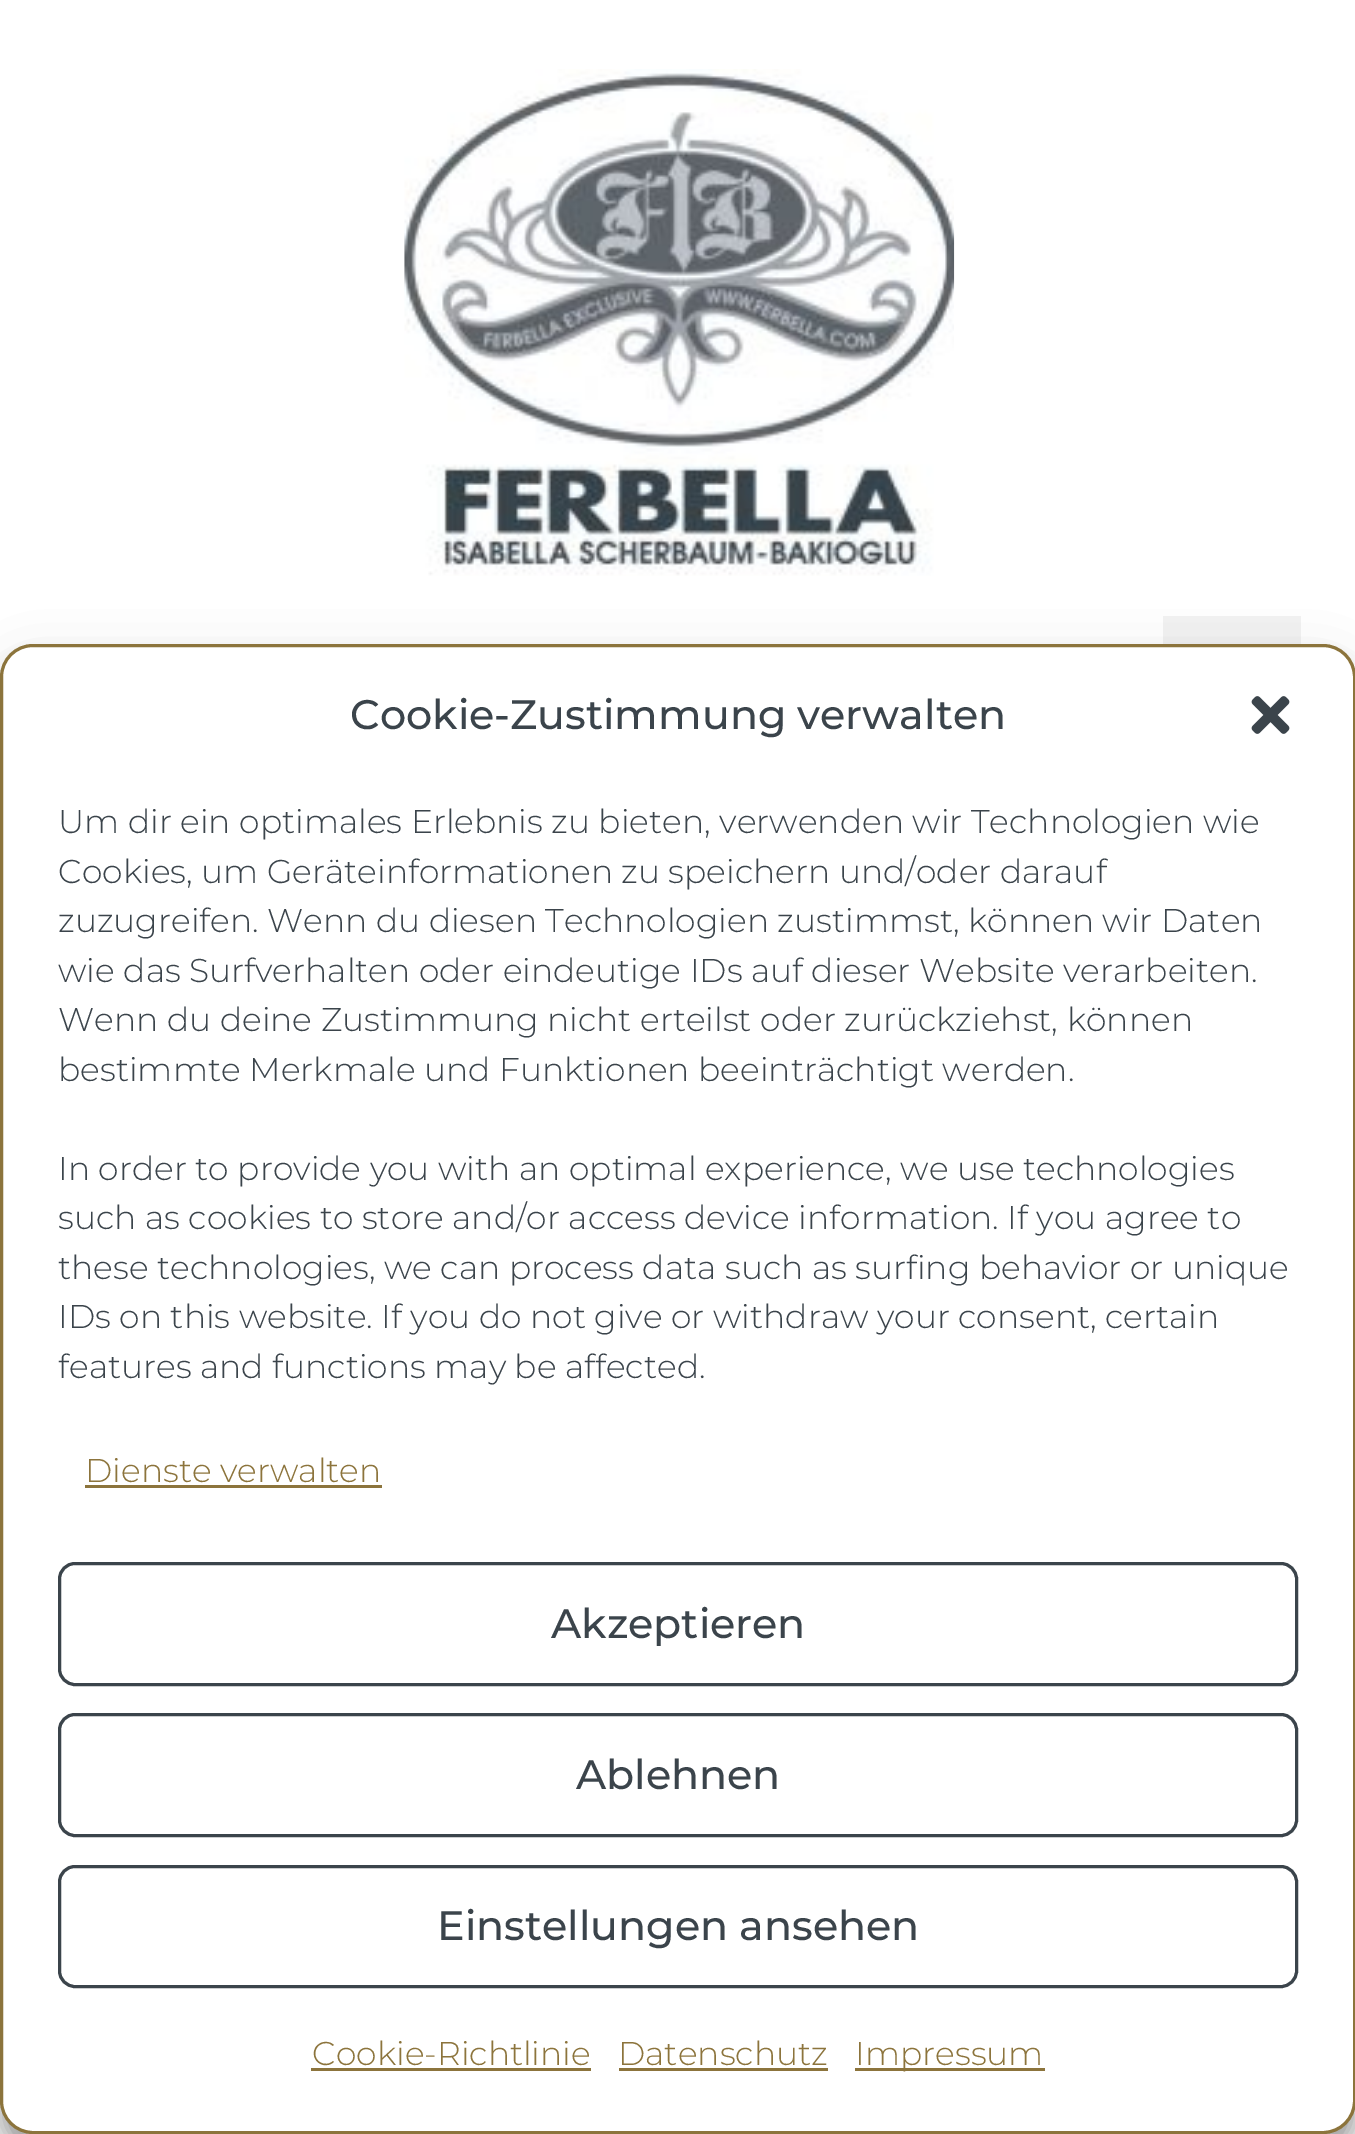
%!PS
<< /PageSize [1355 2134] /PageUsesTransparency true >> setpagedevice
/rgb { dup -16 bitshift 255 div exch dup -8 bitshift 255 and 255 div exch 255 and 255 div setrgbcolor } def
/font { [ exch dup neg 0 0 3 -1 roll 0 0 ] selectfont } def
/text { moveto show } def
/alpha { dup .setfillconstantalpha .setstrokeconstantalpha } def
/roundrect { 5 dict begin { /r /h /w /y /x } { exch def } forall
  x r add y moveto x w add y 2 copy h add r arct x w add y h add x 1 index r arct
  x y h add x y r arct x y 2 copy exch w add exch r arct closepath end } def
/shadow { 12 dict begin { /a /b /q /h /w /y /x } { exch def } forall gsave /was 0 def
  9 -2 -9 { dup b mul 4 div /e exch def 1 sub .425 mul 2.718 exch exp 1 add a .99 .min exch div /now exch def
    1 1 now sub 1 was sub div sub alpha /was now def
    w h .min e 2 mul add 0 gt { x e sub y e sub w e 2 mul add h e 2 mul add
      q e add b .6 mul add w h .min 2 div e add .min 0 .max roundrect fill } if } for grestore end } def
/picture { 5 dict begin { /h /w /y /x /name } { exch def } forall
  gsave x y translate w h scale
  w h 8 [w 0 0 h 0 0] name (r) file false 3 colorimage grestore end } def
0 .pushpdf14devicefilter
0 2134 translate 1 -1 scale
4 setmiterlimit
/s1 { /Montserrat-Medium 41.25 font 16#3B444B rgb } def
/s2 { /Montserrat-Light 33 font 16#3B444B rgb } def
/s3 { /Montserrat-Light 33 font 16#8C743C rgb } def
16#FFFFFF rgb
0 0 1355 2134 rectfill
(pic1.raw) 404 69 551 507 picture
16#F2F2F2 rgb
1163 616 138 28 rectfill
16#000000 rgb
0 660 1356 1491 33 8 0.23 shadow
0 671 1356 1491 33 27.5 0.19 shadow
16#FFFFFF rgb
1.5 645.5 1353 1487 31.5 roundrect gsave fill grestore
16#8C743C rgb
3 setlinewidth
stroke
s1
(Cookie-Zustimmung verwalten) 350 729 text
(pic2.raw) 1251 696 39 38 picture
s2
(Um dir ein optimales Erlebnis zu bieten, verwenden wir Technologien wie) 58 833 text
(Cookies, um Geräteinformationen zu speichern und/oder darauf) 58 883 text
(zuzugreifen. Wenn du diesen Technologien zustimmst, können wir Daten) 58 932 text
(wie das Surfverhalten oder eindeutige IDs auf dieser Website verarbeiten.) 58 982 text
(Wenn du deine Zustimmung nicht erteilst oder zurückziehst, können) 58 1031 text
(bestimmte Merkmale und Funktionen beeinträchtigt werden.) 58 1081 text
(In order to provide you with an optimal experience, we use technologies) 58 1180 text
(such as cookies to store and/or access device information. If you agree to) 58 1229 text
(these technologies, we can process data such as surfing behavior or unique) 58 1279 text
(IDs on this website. If you do not give or withdraw your consent, certain) 58 1328 text
(features and functions may be affected.) 58 1378 text
s3
(Dienste verwalten) 85 1482 text
85 1485 297 3 rectfill
16#3B444B rgb
59.5 1563.5 1237 121 15.5 roundrect stroke
s1
(Akzeptieren) 551 1638 text
59.5 1714.5 1237 121 15.5 roundrect stroke
(Ablehnen) 576 1789 text
59.5 1866.5 1237 120 15.5 roundrect stroke
(Einstellungen ansehen) 437 1940 text
s3
(Cookie-Richtlinie) 312 2065 text
311 2068 280 3 rectfill
(Datenschutz) 618 2065 text
619 2068 209 3 rectfill
855 2068 190 3 rectfill
(Impressum) 855 2065 text
.poppdf14devicefilter showpage
